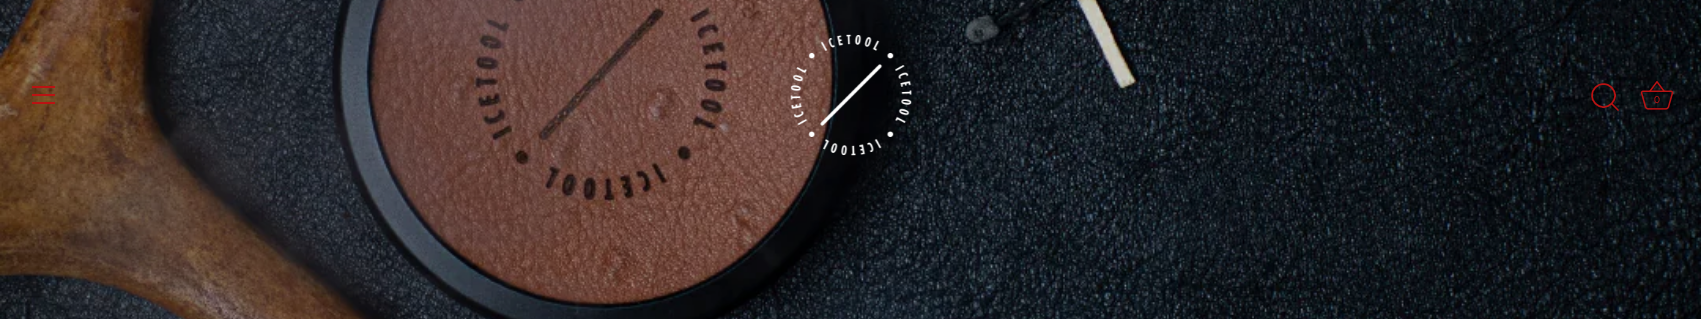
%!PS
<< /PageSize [1701 319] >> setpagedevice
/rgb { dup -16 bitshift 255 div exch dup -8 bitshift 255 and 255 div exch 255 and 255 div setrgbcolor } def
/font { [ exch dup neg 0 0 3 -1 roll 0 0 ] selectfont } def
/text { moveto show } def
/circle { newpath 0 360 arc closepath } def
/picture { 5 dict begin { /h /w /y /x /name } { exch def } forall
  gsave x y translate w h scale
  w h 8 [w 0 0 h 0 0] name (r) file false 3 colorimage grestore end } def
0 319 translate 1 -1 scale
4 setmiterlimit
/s1 { /Jost-Regular 10 font 16#BB1313 rgb } def
16#FFFFFF rgb
0 0 1701 319 rectfill
(pic1.raw) 0 0 1701 319 picture
16#BB1313 rgb
32 86 23 2 rectfill
32 94 23 2 rectfill
32 102 23 2 rectfill
(pic2.raw) 790 34 122 122 picture
1.4 setlinewidth
1603.5 95.5 11.5 circle stroke
1 setlinecap
1 setlinejoin
1618 110 moveto 1612 104 lineto stroke
(pic3.raw) 1640 81 34 29 picture
s1
(0) 1654 103 text
showpage
